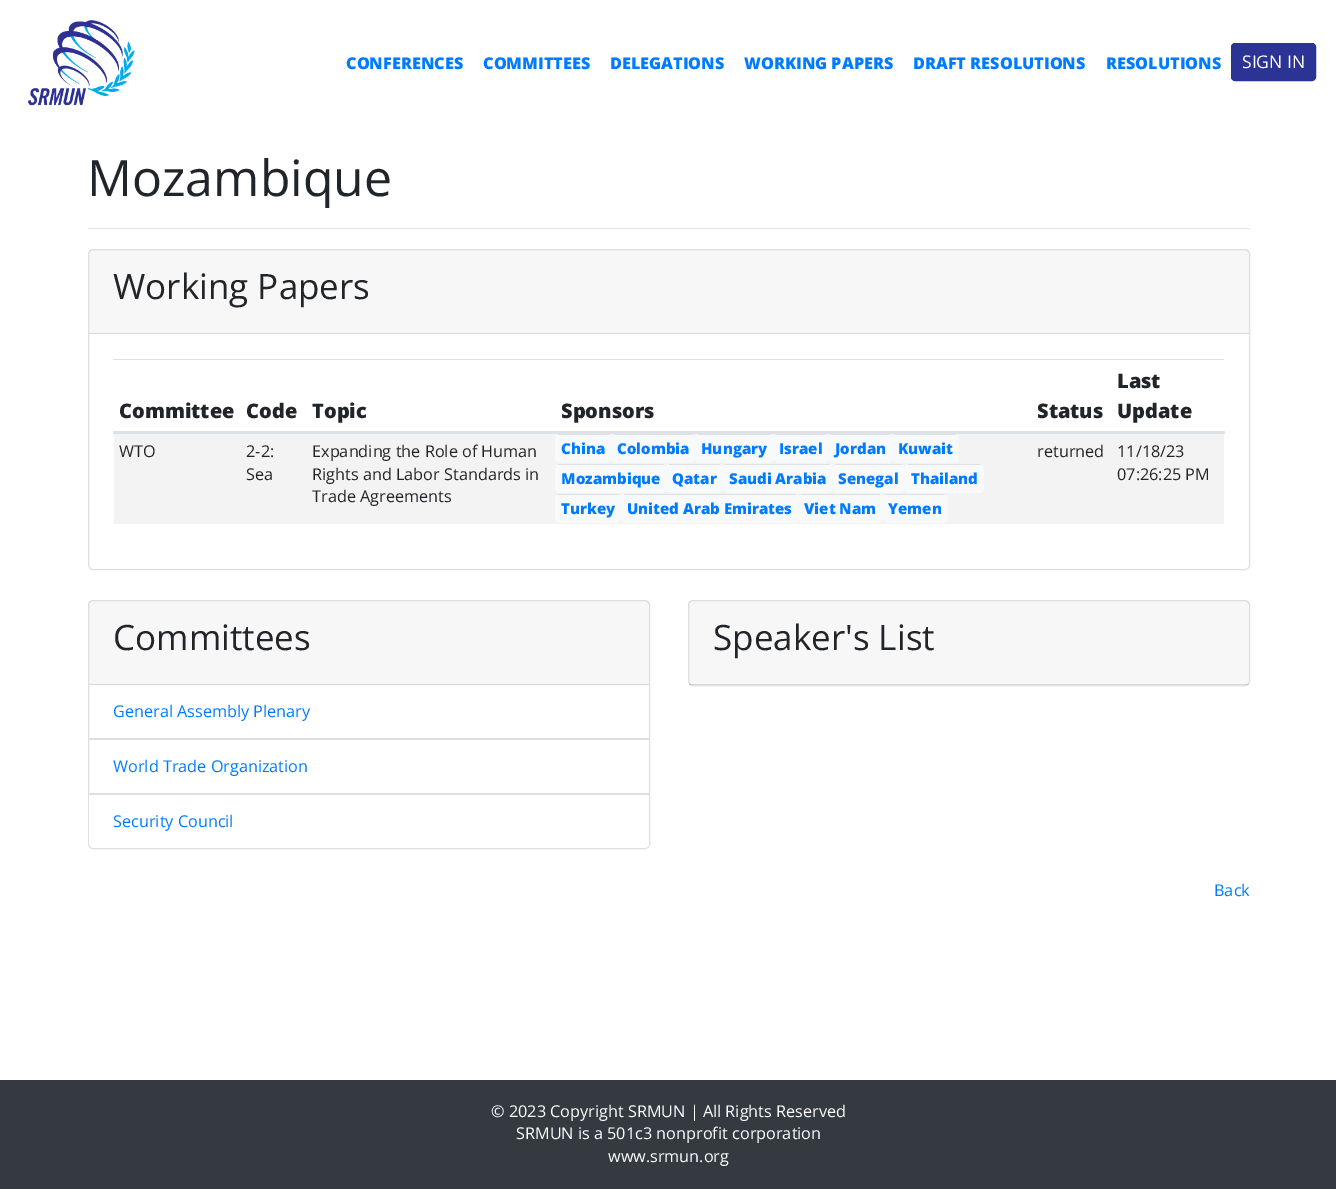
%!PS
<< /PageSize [1336 1189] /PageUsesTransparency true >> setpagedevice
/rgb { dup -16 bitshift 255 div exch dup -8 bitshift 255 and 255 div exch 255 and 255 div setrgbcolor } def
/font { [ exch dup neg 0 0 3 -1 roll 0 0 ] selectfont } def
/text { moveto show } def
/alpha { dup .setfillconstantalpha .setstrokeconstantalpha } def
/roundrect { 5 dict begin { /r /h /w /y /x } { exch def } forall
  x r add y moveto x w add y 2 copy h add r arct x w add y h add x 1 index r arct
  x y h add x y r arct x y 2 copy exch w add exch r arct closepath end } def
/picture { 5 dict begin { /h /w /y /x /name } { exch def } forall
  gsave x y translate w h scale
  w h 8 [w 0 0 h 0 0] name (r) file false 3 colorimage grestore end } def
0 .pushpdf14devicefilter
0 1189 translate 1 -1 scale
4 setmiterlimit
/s1 { /OpenSans-ExtraBold 16.25 font 16#007BFF rgb } def
/s2 { /OpenSans-Regular 17.5 font 16#FFFFFF rgb } def
/s3 { /OpenSans-Regular 50 font 16#212529 rgb } def
/s4 { /OpenSans-Regular 35 font 16#212529 rgb } def
/s5 { /OpenSans-ExtraBold 20 font 16#212529 rgb } def
/s6 { /OpenSans-Regular 16.25 font 16#212529 rgb } def
/s7 { /OpenSans-ExtraBold 15 font 16#007BFF rgb } def
/s8 { /OpenSans-Regular 16.25 font 16#007BFF rgb } def
/s9 { /OpenSans-Regular 16.25 font 16#FFFFFF rgb } def
16#FFFFFF rgb
0 0 1336 1189 rectfill
(pic1.raw) 28 20 107 86 picture
s1
(CONFERENCES) 346 69 text
(COMMITTEES) 483 69 text
(DELEGATIONS) 610 69 text
(WORKING PAPERS) 744 69 text
(DRAFT RESOLUTIONS) 913 69 text
(RESOLUTIONS) 1106 69 text
16#2B3494 rgb
1231.5 43.5 84 37 3.5 roundrect gsave fill grestore
stroke
s2
(SIGN IN) 1242 68 text
s3
(Mozambique) 87 196 text
16#E6E6E6 rgb
88 228 1162 1 rectfill
16#DFDFDF rgb
88.5 249.5 1161 320 4.5 roundrect stroke
0.03 alpha
16#000000 rgb
89 250 1160 83 rectfill
1 alpha
16#D8D8D8 rgb
89 333 1160 1 rectfill
s4
(Working Papers) 113 299 text
s5
(Committee) 119 418 text
(Code) 246 418 text
(Topic) 312 418 text
(Sponsors) 561 418 text
(Status) 1037 418 text
16#DEE2E6 rgb
113 359 1111 1 rectfill
113 431 1112 3 rectfill
s5
(Last) 1117 388 text
(Update) 1117 418 text
16#F3F3F3 rgb
114 434 1110 90 rectfill
s6
(WTO) 119 457 text
(2-2:) 246 457 text
(Sea) 246 480 text
(Expanding the Role of Human) 312 457 text
(Rights and Labor Standards in) 312 480 text
(Trade Agreements) 312 502 text
16#F8F9FA rgb
555 434 56 29 5 roundrect fill
16#DEE2E6 rgb
558 434 51 1 rectfill
s7
(China) 561 454 text
16#F8F9FA rgb
611 434 84 29 5 roundrect fill
16#DEE2E6 rgb
614 434 79 1 rectfill
s7
(Colombia) 617 454 text
16#F8F9FA rgb
695 434 79 29 5 roundrect fill
16#DEE2E6 rgb
698 434 73 1 rectfill
s7
(Hungary) 701 454 text
16#F8F9FA rgb
774 434 55 29 5 roundrect fill
16#DEE2E6 rgb
776 434 50 1 rectfill
s7
(Israel) 779 454 text
16#F8F9FA rgb
829 434 64 29 5 roundrect fill
16#DEE2E6 rgb
831 434 59 1 rectfill
s7
(Jordan) 835 454 text
16#F8F9FA rgb
893 434 66 29 5 roundrect fill
16#DEE2E6 rgb
895 434 61 1 rectfill
s7
(Kuwait) 898 454 text
s6
(returned) 1037 457 text
(11/18/23) 1117 457 text
(07:26:25 PM) 1117 480 text
16#F8F9FA rgb
555 464 111 29 5 roundrect fill
16#DEE2E6 rgb
558 464 106 1 rectfill
s7
(Mozambique) 561 484 text
16#F8F9FA rgb
666 464 57 29 5 roundrect fill
16#DEE2E6 rgb
669 464 51 1 rectfill
s7
(Qatar) 672 484 text
16#F8F9FA rgb
723 464 110 29 5 roundrect fill
16#DEE2E6 rgb
725 464 105 1 rectfill
s7
(Saudi Arabia) 729 484 text
16#F8F9FA rgb
833 464 72 29 5 roundrect fill
16#DEE2E6 rgb
835 464 68 1 rectfill
s7
(Senegal) 838 484 text
16#F8F9FA rgb
905 464 79 29 5 roundrect fill
16#DEE2E6 rgb
908 464 73 1 rectfill
s7
(Thailand) 911 484 text
16#F8F9FA rgb
555 494 66 29 5 roundrect fill
16#DEE2E6 rgb
558 494 61 1 rectfill
s7
(Turkey) 561 514 text
16#F8F9FA rgb
621 494 178 29 5 roundrect fill
16#DEE2E6 rgb
624 494 172 1 rectfill
s7
(United Arab Emirates) 627 514 text
16#F8F9FA rgb
799 494 84 29 5 roundrect fill
16#DEE2E6 rgb
801 494 79 1 rectfill
s7
(Viet Nam) 804 514 text
16#F8F9FA rgb
883 494 65 29 5 roundrect fill
16#DEE2E6 rgb
885 494 60 1 rectfill
s7
(Yemen) 888 514 text
16#DFDFDF rgb
88.5 600.5 561 248 4.5 roundrect stroke
0.03 alpha
16#000000 rgb
89 601 560 83 rectfill
1 alpha
16#D8D8D8 rgb
89 684 560 1 rectfill
s4
(Committees) 113 650 text
16#DFDFDF rgb
89 738 560 2 rectfill
s8
(General Assembly Plenary) 113 717 text
16#DFDFDF rgb
89 793 560 1 rectfill
s8
(World Trade Organization) 113 772 text
16#FFFFFF rgb
89 794 moveto 649 794 lineto 649 843 lineto 649 846 647 848 644 848 curveto 94 848 lineto 91 848 89 846 89 843 curveto closepath fill
16#DFDFDF rgb
89 794 560 1 rectfill
s8
(Security Council) 113 827 text
16#DFDFDF rgb
688.5 600.5 561 85 4.5 roundrect stroke
0.03 alpha
16#000000 rgb
689 601 560 84 rectfill
0.12 alpha
689 684 560 1 rectfill
1 alpha
s4
(Speaker's List) 713 650 text
s8
(Back) 1214 896 text
16#343A40 rgb
0 1080 1336 109 rectfill
s9
(© 2023 Copyright SRMUN | All Rights Reserved) 491 1117 text
(SRMUN is a 501c3 nonprofit corporation) 516 1139 text
(www.srmun.org) 608 1162 text
.poppdf14devicefilter showpage
